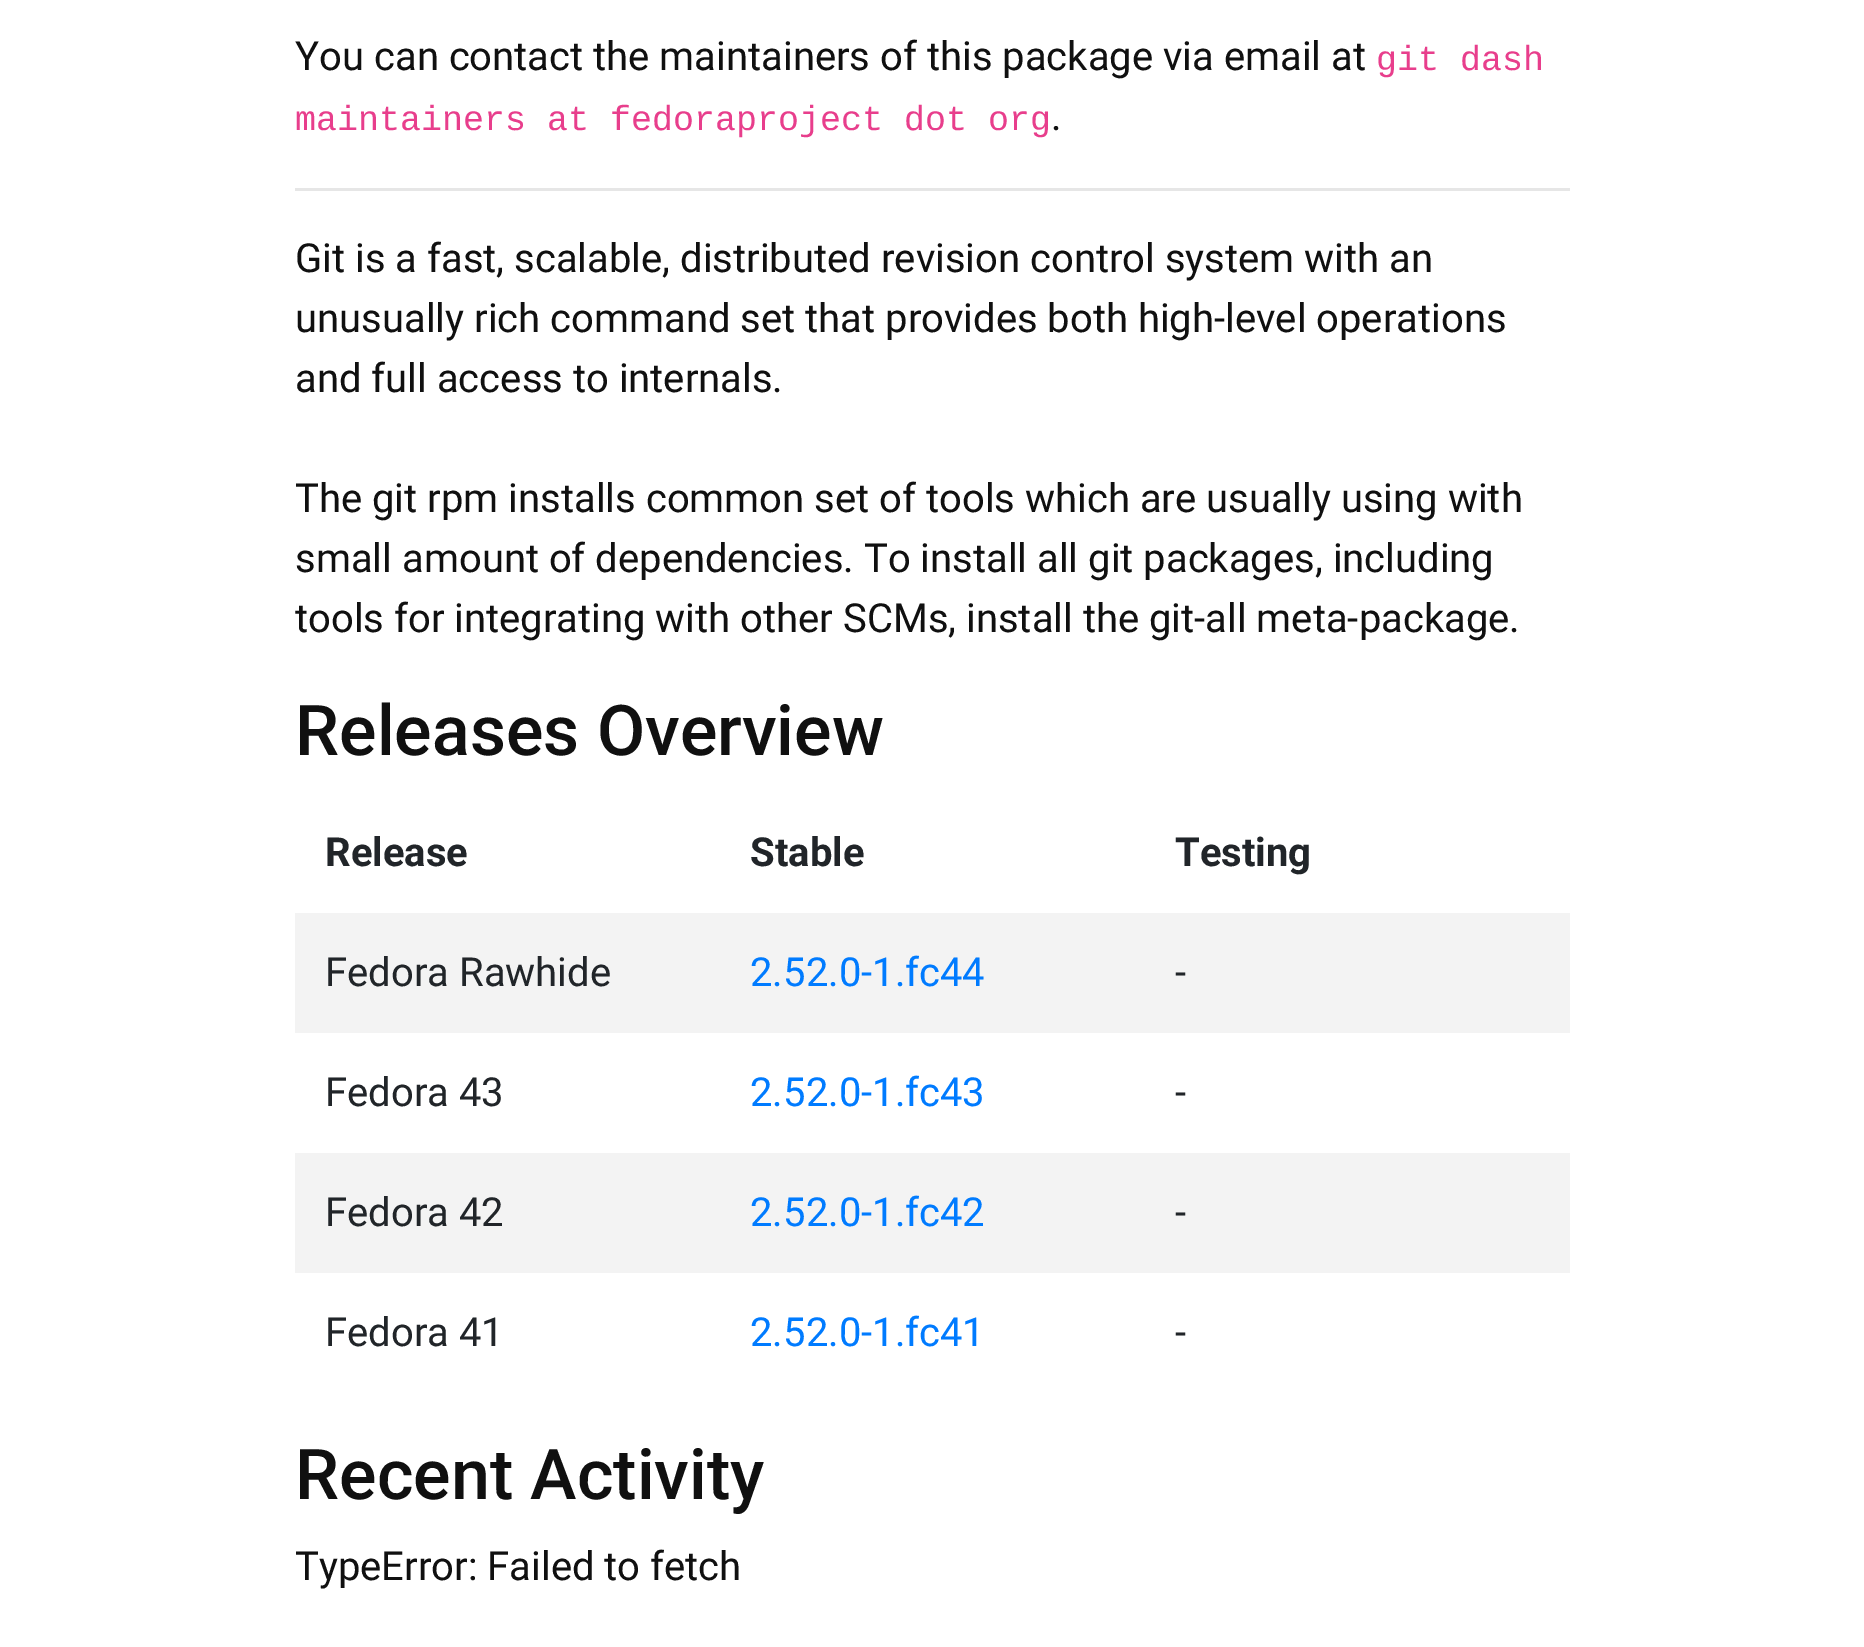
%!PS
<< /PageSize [1864 1647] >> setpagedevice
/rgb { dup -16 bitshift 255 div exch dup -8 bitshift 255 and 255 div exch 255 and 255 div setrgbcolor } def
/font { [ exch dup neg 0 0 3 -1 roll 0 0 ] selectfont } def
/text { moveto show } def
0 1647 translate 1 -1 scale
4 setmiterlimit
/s1 { /Roboto-Regular 40 font 16#101010 rgb } def
/s2 { /LiberationMono-Regular 35 font 16#E83E8C rgb } def
/s3 { /Roboto-Medium 70 font 16#101010 rgb } def
/s4 { /Roboto-Bold 40 font 16#212529 rgb } def
/s5 { /Roboto-Regular 40 font 16#212529 rgb } def
/s6 { /Roboto-Regular 40 font 16#007BFF rgb } def
16#FFFFFF rgb
0 0 1864 1647 rectfill
s1
(You can contact the maintainers of this package via email at) 295 70 text
s2
(git dash) 1376 70 text
(maintainers at fedoraproject dot org) 295 130 text
s1
(.) 1051 130 text
16#E6E6E6 rgb
295 188 1275 3 rectfill
s1
(Git is a fast, scalable, distributed revision control system with an) 295 272 text
(unusually rich command set that provides both high-level operations) 295 332 text
(and full access to internals.) 295 392 text
(The git rpm installs common set of tools which are usually using with) 295 512 text
(small amount of dependencies. To install all git packages, including) 295 572 text
(tools for integrating with other SCMs, install the git-all meta-package.) 295 632 text
s3
(Releases Overview) 295 755 text
s4
(Release) 325 866 text
(Stable) 750 866 text
(Testing) 1175 866 text
16#F3F3F3 rgb
295 913 1275 120 rectfill
s5
(Fedora Rawhide) 325 986 text
s6
(2.52.0-1.fc44) 750 986 text
s5
(-) 1175 986 text
(Fedora 43) 325 1106 text
s6
(2.52.0-1.fc43) 750 1106 text
s5
(-) 1175 1106 text
16#F3F3F3 rgb
295 1153 1275 120 rectfill
s5
(Fedora 42) 325 1226 text
s6
(2.52.0-1.fc42) 750 1226 text
s5
(-) 1175 1226 text
(Fedora 41) 325 1346 text
s6
(2.52.0-1.fc41) 750 1346 text
s5
(-) 1175 1346 text
s3
(Recent Activity) 295 1499 text
s1
(TypeError: Failed to fetch) 295 1580 text
showpage
